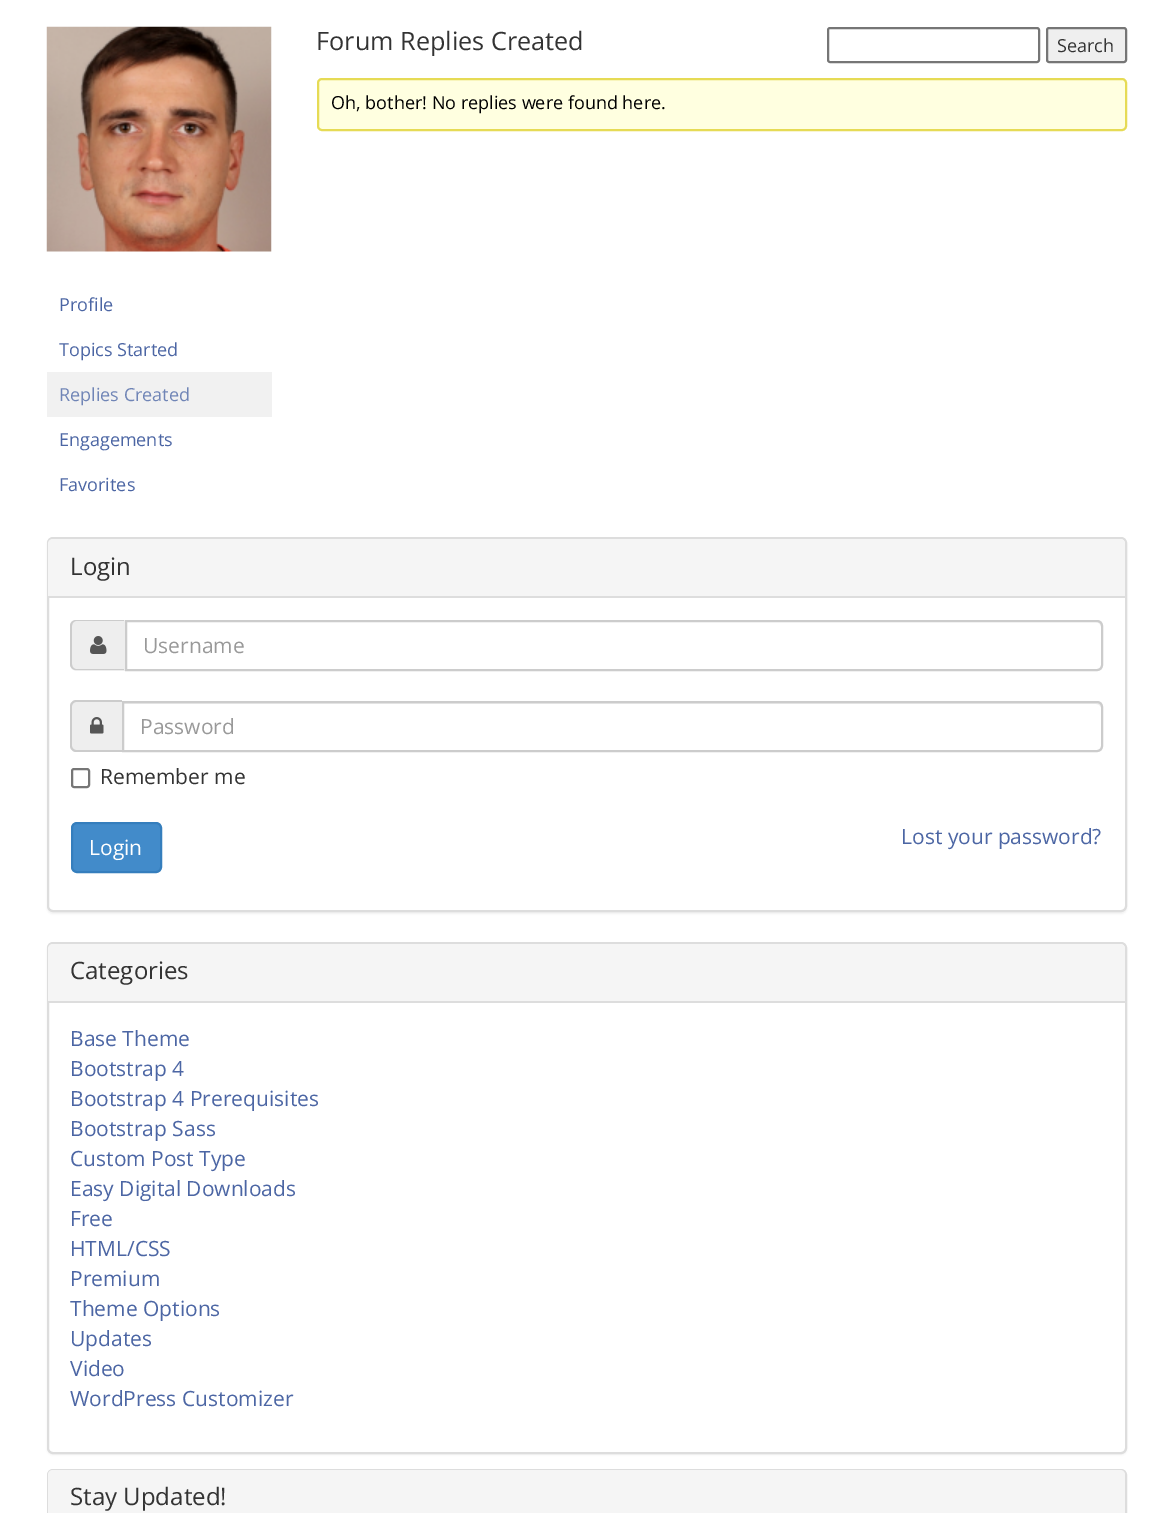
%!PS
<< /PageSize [1171 1513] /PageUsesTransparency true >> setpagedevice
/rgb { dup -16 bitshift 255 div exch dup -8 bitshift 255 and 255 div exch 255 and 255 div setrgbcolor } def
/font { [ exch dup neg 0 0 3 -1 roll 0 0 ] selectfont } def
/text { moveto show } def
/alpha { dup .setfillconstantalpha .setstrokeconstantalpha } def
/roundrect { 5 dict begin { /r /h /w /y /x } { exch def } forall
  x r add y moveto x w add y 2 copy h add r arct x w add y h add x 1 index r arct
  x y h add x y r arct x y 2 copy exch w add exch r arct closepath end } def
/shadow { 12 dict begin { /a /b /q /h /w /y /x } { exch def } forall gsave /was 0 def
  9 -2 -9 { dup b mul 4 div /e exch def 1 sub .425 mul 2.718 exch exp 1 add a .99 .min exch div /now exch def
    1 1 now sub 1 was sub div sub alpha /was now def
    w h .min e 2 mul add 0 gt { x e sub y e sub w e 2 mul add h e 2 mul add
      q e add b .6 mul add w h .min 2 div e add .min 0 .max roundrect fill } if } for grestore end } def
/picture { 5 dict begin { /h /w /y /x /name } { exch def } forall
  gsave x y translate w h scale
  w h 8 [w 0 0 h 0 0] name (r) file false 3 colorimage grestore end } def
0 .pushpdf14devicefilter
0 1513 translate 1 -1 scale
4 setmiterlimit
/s1 { /OpenSans-Regular 25.25 font 16#333333 rgb } def
/s2 { /OpenSans-Regular 18 font 16#333333 rgb } def
/s3 { /OpenSans-Regular 18 font 16#000000 rgb } def
/s4 { /OpenSans-Regular 18 font 16#4C66A4 rgb } def
/s5 { /OpenSans-Regular 18 font 16#7085B6 rgb } def
/s6 { /OpenSans-Regular 24 font 16#333333 rgb } def
/s7 { /OpenSans-Regular 21 font 16#999999 rgb } def
/s8 { /OpenSans-Regular 21 font 16#333333 rgb } def
/s9 { /OpenSans-Regular 21 font 16#FFFFFF rgb } def
/s10 { /OpenSans-Regular 21 font 16#4C66A4 rgb } def
16#FFFFFF rgb
0 0 1171 1513 rectfill
s1
(Forum Replies Created) 316 50 text
16#767676 rgb
2 setlinewidth
828 28 211 34 2 roundrect stroke
16#EFEFEF rgb
1047 28 79 34 2 roundrect gsave fill grestore
16#767676 rgb
stroke
s2
(Search) 1057 52 text
16#FFFFE0 rgb
318 79 808 51 4 roundrect gsave fill grestore
16#E6DB55 rgb
stroke
s3
(Oh, bother! No replies were found here.) 331 109 text
(pic1.raw) 46 26 226 226 picture
s4
(Profile) 59 311 text
(Topics Started) 59 356 text
16#F1F1F1 rgb
47 372 225 45 rectfill
s5
(Replies Created) 59 401 text
s4
(Engagements) 59 446 text
(Favorites) 59 491 text
16#000000 rgb
47 539 1080 375 6 1 0.05 shadow
16#FFFFFF rgb
48 538 1078 373 5 roundrect gsave fill grestore
16#DDDDDD rgb
stroke
16#F5F5F5 rgb
53 539 moveto 1120 539 lineto 1123 539 1125 541 1125 544 curveto 1125 597 lineto 48 597 lineto 48 544 lineto 48 541 50 539 53 539 curveto closepath fill
16#DDDDDD rgb
48 596 1077 2 rectfill
s6
(Login) 70 575 text
16#EEEEEE rgb
77 620 moveto 125 620 lineto 125 671 lineto 77 671 lineto 73.5 671 71 668.5 71 665 curveto 71 626 lineto 71 622.5 73.5 620 77 620 curveto closepath fill
16#CCCCCC rgb
76 620 moveto 124 620 lineto 124 670 lineto 76 670 lineto 73 670 70 668 70 664 curveto 70 626 lineto 70 622 73 620 76 620 curveto closepath 76 621 moveto 124 621 lineto 124 669 lineto 76 669 lineto 74 669 72 667 72 664 curveto 72 626 lineto 72 623 74 621 76 621 curveto closepath eofill
(pic2.raw) 90 636 17 18 picture
16#ECECEC rgb
126 622 moveto 1096 622 lineto 1099 622 1101 625 1101 627 curveto 1101 624 1099 621 1096 621 curveto 126 621 lineto closepath fill
16#CCCCCC rgb
126 621 moveto 1097 621 lineto 1100 621 1102 623 1102 626 curveto 1102 665 lineto 1102 668 1100 670 1097 670 curveto 126 670 lineto closepath stroke
s7
(Username) 143 653 text
16#EEEEEE rgb
77 701 moveto 122 701 lineto 122 752 lineto 77 752 lineto 73.5 752 71 749.5 71 746 curveto 71 707 lineto 71 703.5 73.5 701 77 701 curveto closepath fill
16#CCCCCC rgb
76 700 moveto 122 700 lineto 122 752 lineto 76 752 lineto 73 752 70 749 70 746 curveto 70 706 lineto 70 703 73 700 76 700 curveto closepath 76 702 moveto 122 702 lineto 122 750 lineto 76 750 lineto 74 750 72 748 72 746 curveto 72 706 lineto 72 704 74 702 76 702 curveto closepath eofill
(pic3.raw) 90 717 14 17 picture
16#ECECEC rgb
123 704 moveto 1096 704 lineto 1099 704 1101 706 1101 708 curveto 1101 705 1099 702 1096 702 curveto 123 702 lineto closepath fill
16#CCCCCC rgb
123 702 moveto 1097 702 lineto 1100 702 1102 704 1102 707 curveto 1102 746 lineto 1102 749 1100 751 1097 751 curveto 123 751 lineto closepath stroke
s7
(Password) 140 734 text
16#767676 rgb
72 769 17 18 2 roundrect stroke
s8
(Remember me) 100 784 text
16#428BCA rgb
72 823 89 49 5 roundrect gsave fill grestore
16#357EBD rgb
stroke
s9
(Login) 89 855 text
s10
(Lost your password?) 901 844 text
16#000000 rgb
47 944 1080 511 6 1 0.05 shadow
16#FFFFFF rgb
48 943 1078 510 5 roundrect gsave fill grestore
16#DDDDDD rgb
stroke
16#F5F5F5 rgb
53 944 moveto 1120 944 lineto 1123 944 1125 946 1125 949 curveto 1125 1002 lineto 48 1002 lineto 48 949 lineto 48 946 50 944 53 944 curveto closepath fill
16#DDDDDD rgb
48 1001 1077 2 rectfill
s6
(Categories) 70 979 text
s10
(Base Theme) 70 1046 text
(Bootstrap 4) 70 1076 text
(Bootstrap 4 Prerequisites) 70 1106 text
(Bootstrap Sass) 70 1136 text
(Custom Post Type) 70 1166 text
(Easy Digital Downloads) 70 1196 text
(Free) 70 1226 text
(HTML/CSS) 70 1256 text
(Premium) 70 1286 text
(Theme Options) 70 1316 text
(Updates) 70 1346 text
(Video) 70 1376 text
(WordPress Customizer) 70 1406 text
16#DDDDDD rgb
48 1470 1078 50 5 roundrect stroke
16#F5F5F5 rgb
53 1470 moveto 1120 1470 lineto 1123 1470 1125 1472 1125 1475 curveto 1125 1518 lineto 48 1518 lineto 48 1475 lineto 48 1472 50 1470 53 1470 curveto closepath fill
s6
(Stay Updated!) 70 1505 text
.poppdf14devicefilter showpage
